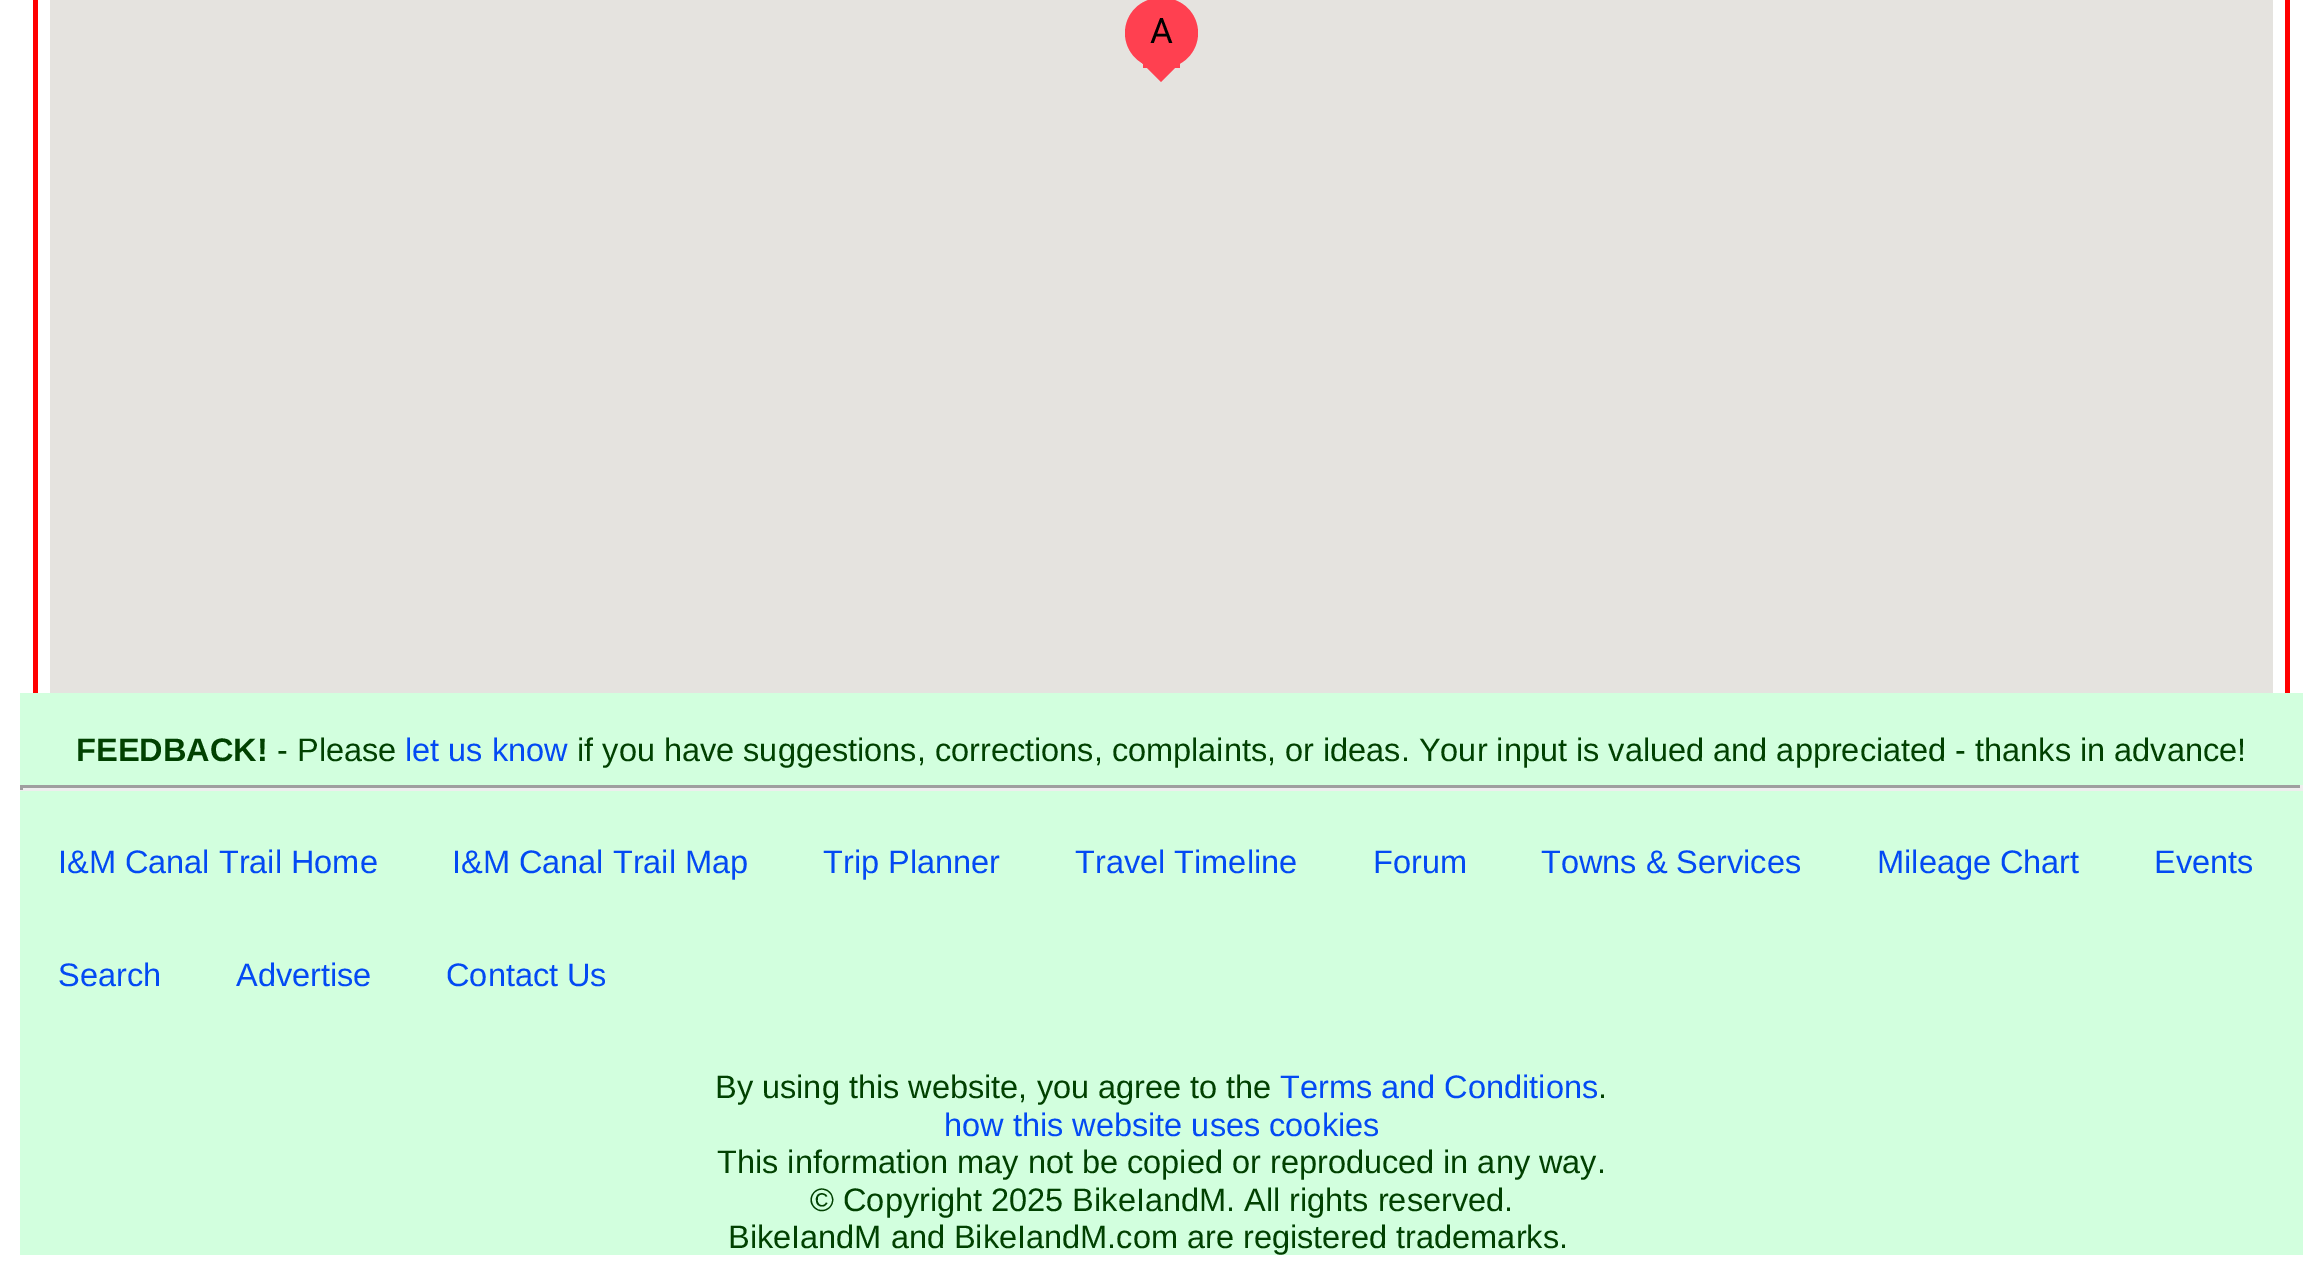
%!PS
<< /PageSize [2322 1274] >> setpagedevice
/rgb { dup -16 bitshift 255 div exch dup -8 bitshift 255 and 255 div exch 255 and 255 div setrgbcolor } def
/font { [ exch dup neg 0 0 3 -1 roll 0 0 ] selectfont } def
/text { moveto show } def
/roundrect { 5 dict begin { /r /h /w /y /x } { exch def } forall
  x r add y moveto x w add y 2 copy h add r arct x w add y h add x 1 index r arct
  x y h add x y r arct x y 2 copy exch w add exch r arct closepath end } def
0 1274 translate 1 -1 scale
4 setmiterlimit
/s1 { /Roboto-Regular 35 font 16#000000 rgb } def
/s2 { /LiberationSans-Bold 32.5 font 16#014101 rgb } def
/s3 { /LiberationSans-Regular 32.5 font 16#014101 rgb } def
/s4 { /LiberationSans-Regular 32.5 font 16#034AF3 rgb } def
16#FFFFFF rgb
0 0 2322 1274 rectfill
16#FF0000 rgb
33 0 5 693 rectfill
16#E5E3DF rgb
50 0 2223 693 rectfill
16#FF4050 rgb
1125 -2 73 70 35 roundrect fill
1143 63 37 5 rectfill
s1
(A) 1150 43 text
16#FF4050 rgb
1141 62 moveto 1181 62 lineto 1161 82 lineto closepath fill
16#FF0000 rgb
2285 0 5 693 rectfill
16#D2FFDE rgb
20 693 2283 562 rectfill
s2
(FEEDBACK!) 76 761 text
s3
(- Please) 277 761 text
s4
(let us know) 405 761 text
s3
(if you have suggestions, corrections, complaints, or ideas. Your input is valued and appreciated - thanks in advance!) 577 761 text
16#9F9F9F rgb
20 785 2283 3 rectfill
16#EEEEEE rgb
2300 785 3 5 rectfill
20 788 2283 3 rectfill
16#9F9F9F rgb
20 785 3 5 rectfill
s4
(I&M Canal Trail Home) 58 873 text
(I&M Canal Trail Map) 452 873 text
(Trip Planner) 823 873 text
(Travel Timeline) 1075 873 text
(Forum) 1373 873 text
(Towns & Services) 1541 873 text
(Mileage Chart) 1877 873 text
(Events) 2154 873 text
(Search) 58 986 text
(Advertise) 236 986 text
(Contact Us) 446 986 text
s3
(By using this website, you agree to the) 715 1098 text
s4
(Terms and Conditions) 1280 1098 text
s3
(.) 1598 1098 text
s4
(how this website uses cookies) 944 1136 text
s3
(This information may not be copied or reproduced in any way.) 717 1173 text
(© Copyright 2025 BikeIandM. All rights reserved.) 810 1211 text
(BikeIandM and BikeIandM.com are registered trademarks.) 728 1248 text
showpage
